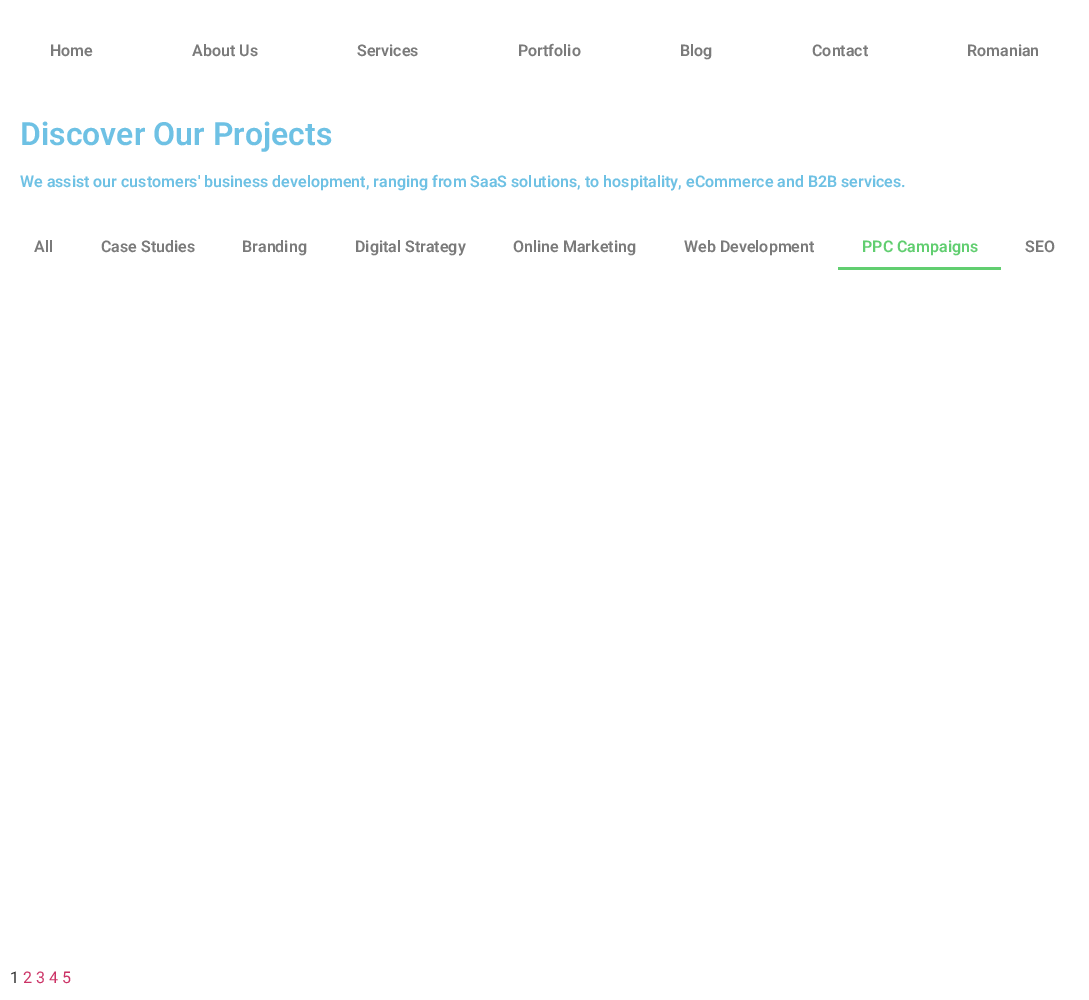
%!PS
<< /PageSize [1089 1000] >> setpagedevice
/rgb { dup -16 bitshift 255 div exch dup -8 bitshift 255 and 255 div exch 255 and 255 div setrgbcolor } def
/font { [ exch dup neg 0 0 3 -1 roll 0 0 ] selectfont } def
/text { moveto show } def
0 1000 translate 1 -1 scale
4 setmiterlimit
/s1 { /Roboto-SemiBold 16 font 16#7A7A7A rgb } def
/s2 { /Roboto-SemiBold 32 font 16#6EC1E4 rgb } def
/s3 { /Roboto-SemiBold 16 font 16#6EC1E4 rgb } def
/s4 { /Roboto-SemiBold 16 font 16#61CE70 rgb } def
/s5 { /Roboto-Regular 16 font 16#333333 rgb } def
/s6 { /Roboto-Regular 16 font 16#CC3366 rgb } def
16#FFFFFF rgb
0 0 1089 1000 rectfill
s1
(Home) 50 56 text
(About Us) 192 56 text
(Services) 357 56 text
(Portfolio) 518 56 text
(Blog) 680 56 text
(Contact) 812 56 text
(Romanian) 967 56 text
s2
(Discover Our Projects) 20 145 text
s3
(We assist our customers' business development, ranging from SaaS solutions, to hospitality, eCommerce and B2B services.) 20 187 text
s1
(All) 34 252 text
(Case Studies) 101 252 text
(Branding) 242 252 text
(Digital Strategy) 355 252 text
(Online Marketing) 513 252 text
(Web Development) 684 252 text
s4
(PPC Campaigns) 862 252 text
838 267 163 3 rectfill
s1
(SEO) 1025 252 text
s5
(1) 10 983 text
s6
(2 3 4 5) 23 983 text
showpage
